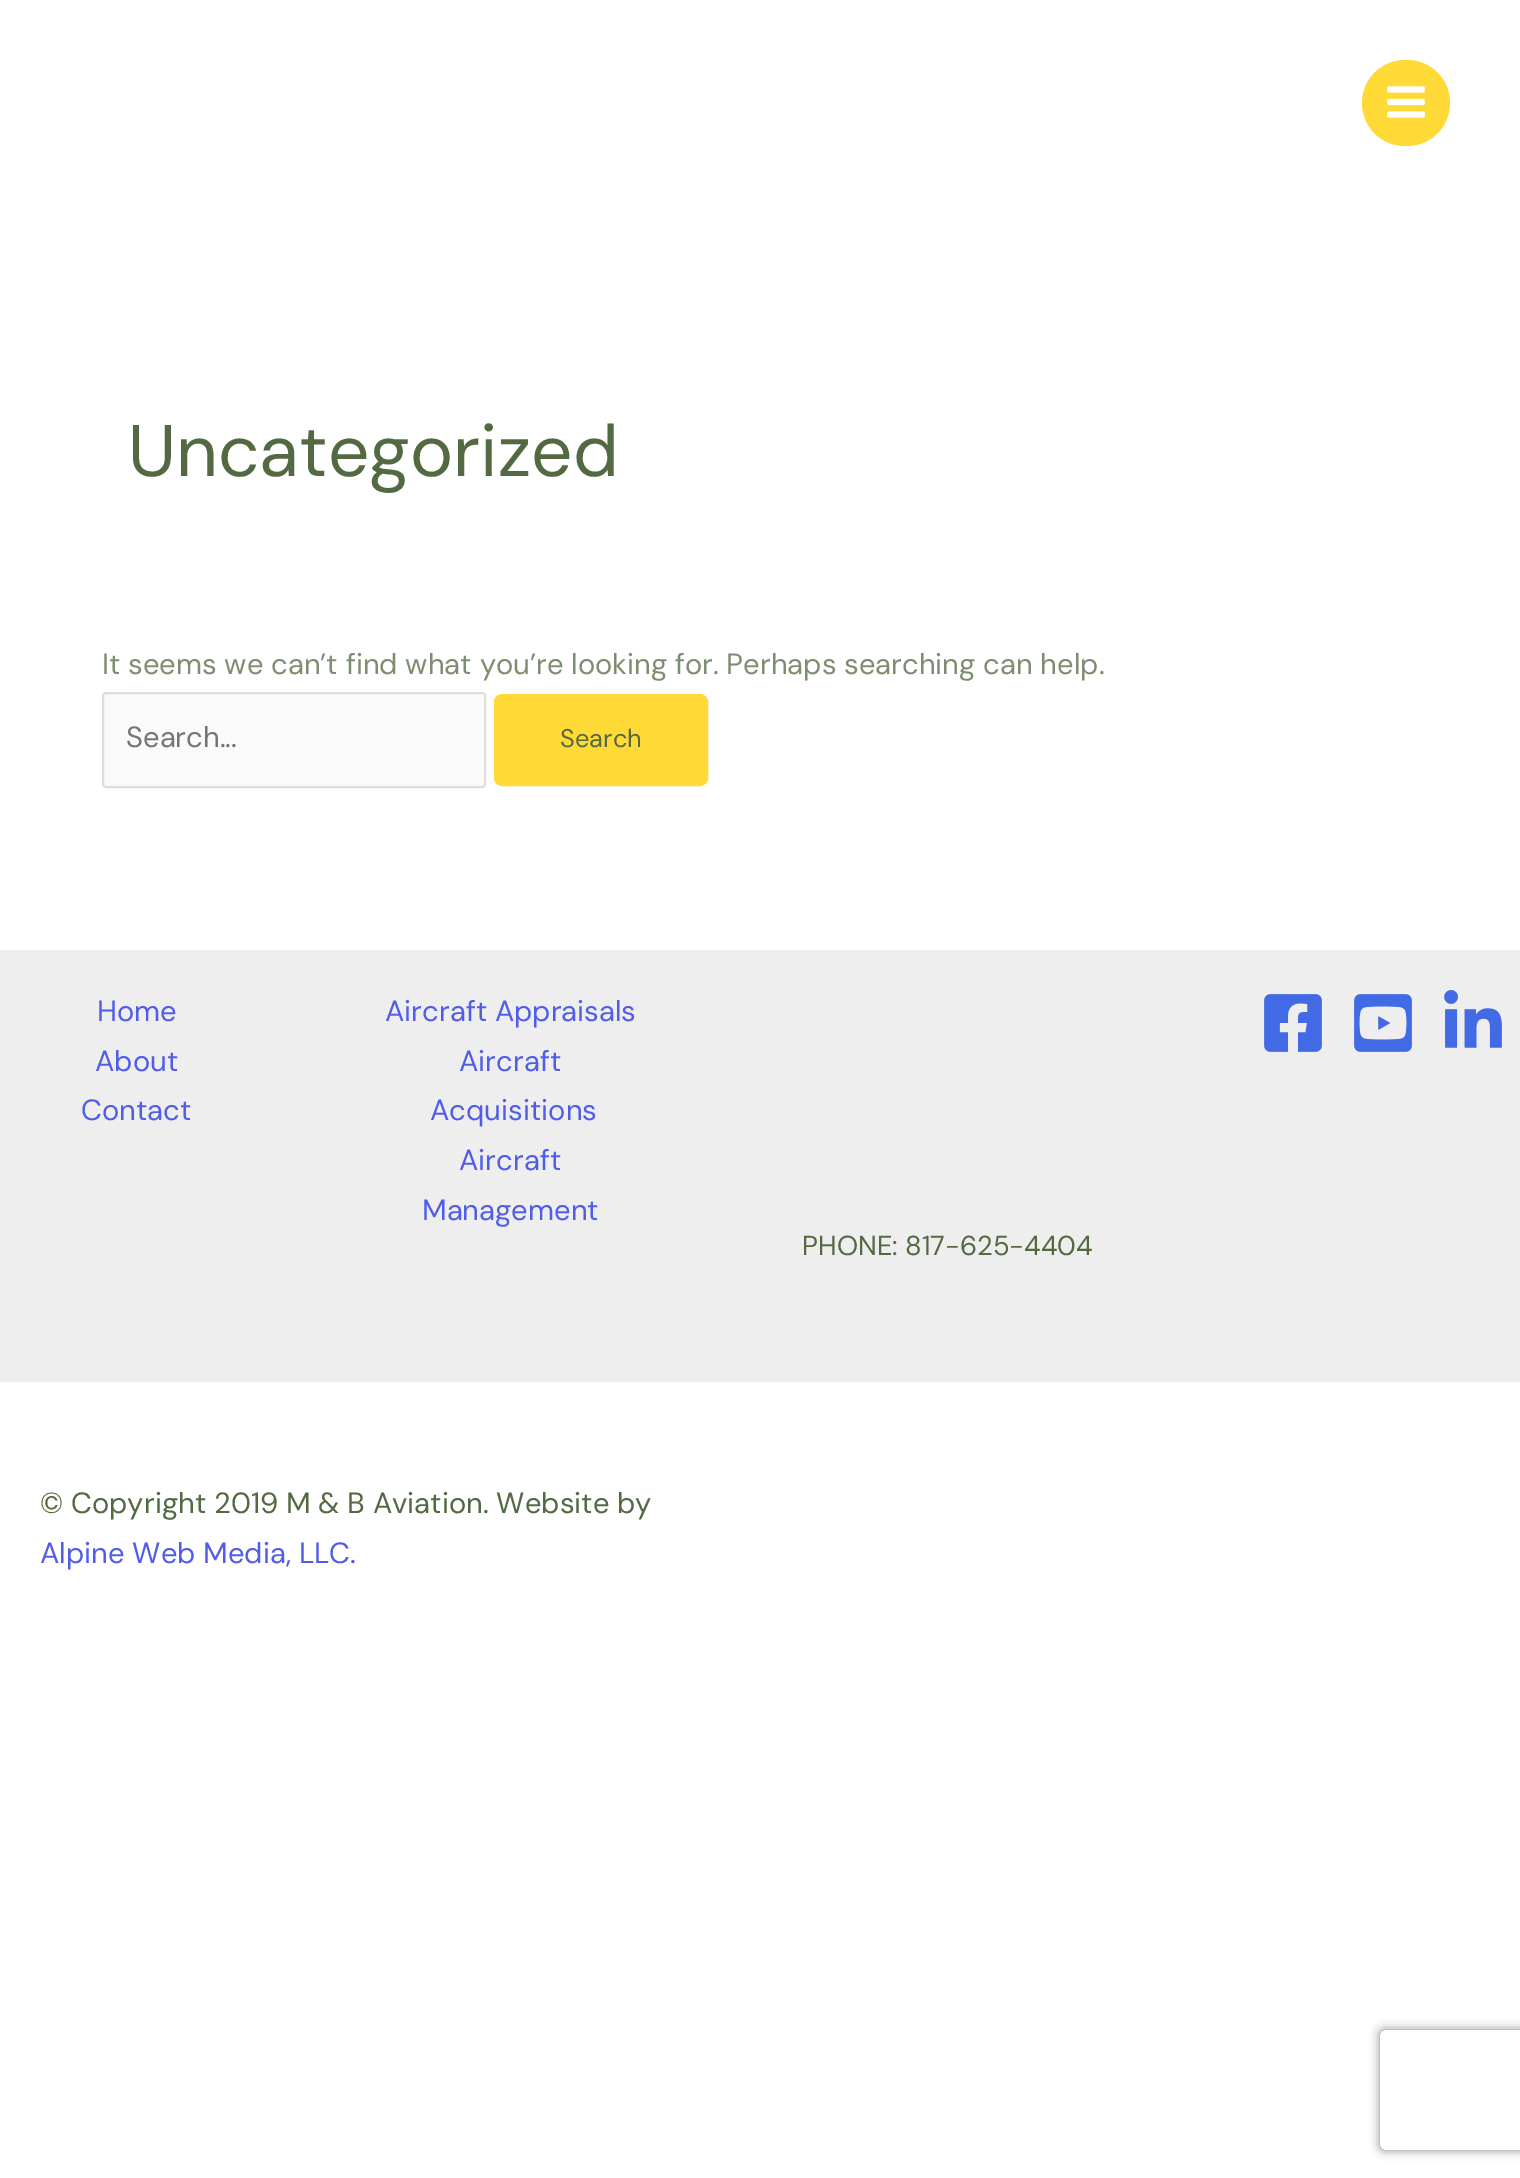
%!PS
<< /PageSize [1520 2178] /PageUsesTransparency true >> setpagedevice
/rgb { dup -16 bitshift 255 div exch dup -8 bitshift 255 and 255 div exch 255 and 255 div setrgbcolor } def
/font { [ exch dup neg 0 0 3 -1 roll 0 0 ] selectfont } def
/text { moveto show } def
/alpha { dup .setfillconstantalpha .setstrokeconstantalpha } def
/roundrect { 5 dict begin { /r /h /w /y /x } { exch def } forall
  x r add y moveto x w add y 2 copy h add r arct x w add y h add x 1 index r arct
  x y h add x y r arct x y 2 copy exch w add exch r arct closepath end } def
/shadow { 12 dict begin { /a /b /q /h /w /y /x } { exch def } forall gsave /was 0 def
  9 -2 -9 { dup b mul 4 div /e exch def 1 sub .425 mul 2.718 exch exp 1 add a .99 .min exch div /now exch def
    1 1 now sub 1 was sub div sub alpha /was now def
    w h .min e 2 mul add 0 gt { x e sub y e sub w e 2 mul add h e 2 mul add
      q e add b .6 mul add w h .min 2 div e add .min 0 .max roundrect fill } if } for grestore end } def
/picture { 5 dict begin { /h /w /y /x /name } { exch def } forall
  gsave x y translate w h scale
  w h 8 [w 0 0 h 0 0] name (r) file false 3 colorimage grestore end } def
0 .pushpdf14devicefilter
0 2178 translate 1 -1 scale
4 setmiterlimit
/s1 { /DMSans-Regular 73 font 16#536942 rgb } def
/s2 { /DMSans-Regular 29.2 font 16#7D8E70 rgb } def
/s3 { /DMSans-Regular 29.2 font 16#757575 rgb } def
/s4 { /DMSans-Regular 25.5 font 16#536942 rgb } def
/s5 { /DMSans-Regular 29.2 font 16#515DE8 rgb } def
/s6 { /DMSans-Regular 27.4 font 16#536942 rgb } def
/s7 { /DMSans-Regular 29.2 font 16#536942 rgb } def
16#FFFFFF rgb
0 0 1520 2178 rectfill
16#FFD936 rgb
1362 60 88 86 43 roundrect fill
(pic1.raw) 1387 86 38 32 picture
s1
(Uncategorized) 128 476 text
s2
(It seems we can’t find what you’re looking for. Perhaps searching can help.) 102 674 text
16#FAFAFA rgb
103 693 382 94 3 roundrect gsave fill grestore
16#DDDDDD rgb
2 setlinewidth
stroke
s3
(Search...) 126 747 text
16#FFD936 rgb
495 695 212 90 7 roundrect gsave fill grestore
stroke
s4
(Search) 560 747 text
16#EEEEEE rgb
0 950 1520 432 rectfill
s5
(Home) 97 1021 text
(About) 95 1071 text
(Contact) 81 1120 text
(Aircraft Appraisals) 385 1021 text
(Aircraft) 459 1071 text
(Acquisitions) 430 1120 text
(Aircraft) 459 1170 text
(Management) 422 1220 text
(pic2.raw) 1264 994 58 58 picture
(pic3.raw) 1354 994 58 58 picture
(pic4.raw) 1444 990 58 58 picture
s6
(PHONE: 817-625-4404) 802 1255 text
s7
(© Copyright 2019 M & B Aviation. Website by) 40 1513 text
s5
(Alpine Web Media, LLC.) 40 1563 text
gsave
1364 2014 moveto 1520 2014 lineto 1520 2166 lineto 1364 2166 lineto closepath 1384 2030 moveto 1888 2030 lineto 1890 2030 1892 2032 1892 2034 curveto 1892 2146 lineto 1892 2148 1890 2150 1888 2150 curveto 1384 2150 lineto 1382 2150 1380 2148 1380 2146 curveto 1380 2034 lineto 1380 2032 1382 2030 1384 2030 curveto closepath eoclip newpath
16#808080 rgb
1380 2030 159 120 4 5 1 shadow
grestore
.poppdf14devicefilter showpage
